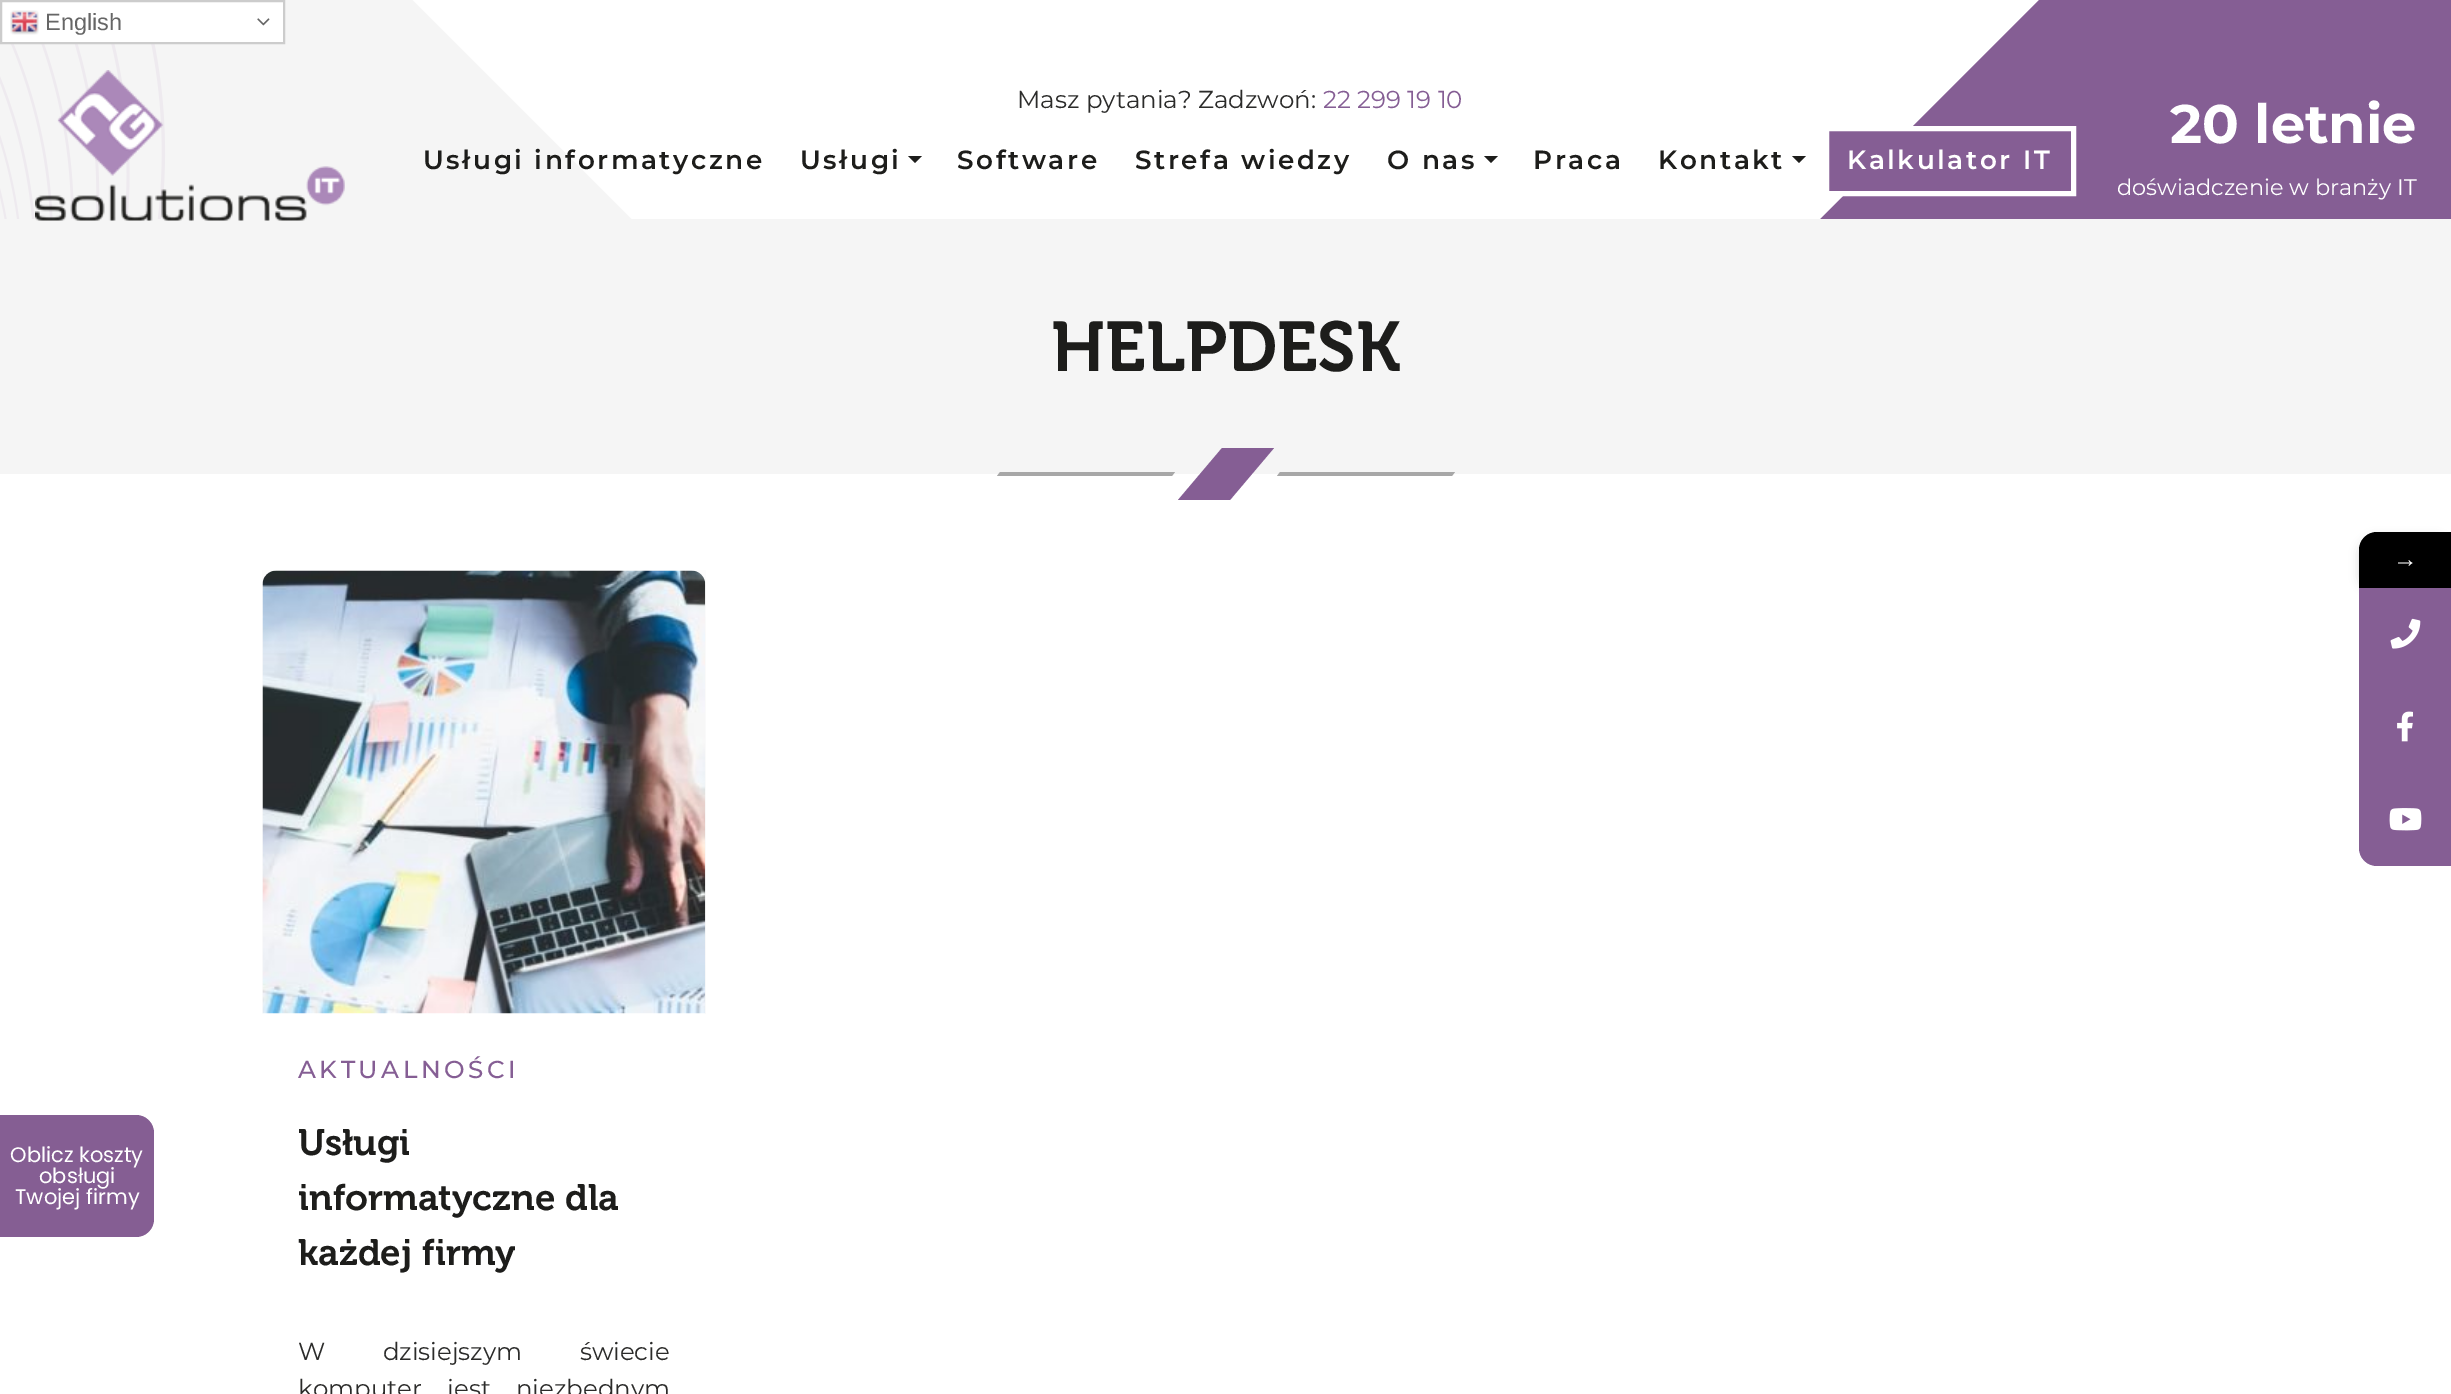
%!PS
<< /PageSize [2451 1394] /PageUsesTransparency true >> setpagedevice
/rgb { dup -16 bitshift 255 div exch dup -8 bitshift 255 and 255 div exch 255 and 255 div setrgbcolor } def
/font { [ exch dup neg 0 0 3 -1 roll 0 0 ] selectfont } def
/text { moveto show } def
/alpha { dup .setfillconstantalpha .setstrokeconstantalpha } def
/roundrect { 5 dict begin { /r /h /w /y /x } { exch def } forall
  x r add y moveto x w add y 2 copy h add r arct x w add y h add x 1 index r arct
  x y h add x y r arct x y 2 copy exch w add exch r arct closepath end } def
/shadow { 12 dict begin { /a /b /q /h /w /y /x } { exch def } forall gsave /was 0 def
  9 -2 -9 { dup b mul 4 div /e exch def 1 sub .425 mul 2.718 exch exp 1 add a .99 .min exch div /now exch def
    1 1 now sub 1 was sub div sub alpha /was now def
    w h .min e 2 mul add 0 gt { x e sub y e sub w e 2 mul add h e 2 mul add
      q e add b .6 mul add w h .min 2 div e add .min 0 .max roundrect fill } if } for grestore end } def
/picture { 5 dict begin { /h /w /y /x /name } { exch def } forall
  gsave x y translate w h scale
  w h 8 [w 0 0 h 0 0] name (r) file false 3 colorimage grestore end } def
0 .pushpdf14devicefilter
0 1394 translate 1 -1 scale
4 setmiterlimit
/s1 { /LiberationSans-Regular 23.5 font 16#666666 rgb } def
/s2 { /Montserrat-Regular 24.5 font 16#2B2B2A rgb } def
/s3 { /Montserrat-Regular 24.5 font 16#855E94 rgb } def
/s4 { /Montserrat-Bold 54.25 font 16#FFFFFF rgb } def
/s5 { /Montserrat-Regular 22.4 font 16#FFFFFF rgb } def
/s6 { /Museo-SemiBold 70 font 16#1D1D1B rgb } def
/s7 { /LiberationSerif-Regular 24.5 font 16#FFFFFF rgb } def
/s8 { /Poppins-Regular 21 font 16#FFFFFF rgb } def
/s9 { /Museo-SemiBold 36.75 font 16#1D1D1B rgb } def
16#FFFFFF rgb
0 0 2451 1394 rectfill
(pic1.raw) 0 0 632 219 picture
16#855E94 rgb
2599 0 moveto 2039 0 lineto 1374 666 lineto 1422 714 lineto 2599 714 lineto closepath fill
16#FFFFFF rgb
1 1 moveto 284 1 lineto 284 43 lineto 1 43 lineto closepath gsave fill grestore
16#CCCCCC rgb
2 setlinewidth
stroke
(pic2.raw) 10 10 29 25 picture
s1
(English) 45 30 text
(pic3.raw) 257 18 13 8 picture
16#F5F5F5 rgb
0 219 2451 255 rectfill
(pic4.raw) 35 70 310 151 picture
s2
(Masz pytania? Zadzwoń:) 1017 108 text
s3
(22 299 19 10) 1323 108 text
/Montserrat-SemiBold 26.25 font
16#1D1D1B rgb
423 169 moveto 2.6 0 (Usługi informatyczne) ashow
800 169 moveto 2.6 0 (Usługi) ashow
908 156 moveto 922 156 lineto 915 163 lineto closepath fill
957 169 moveto 2.6 0 (Software) ashow
1135 169 moveto 2.6 0 (Strefa wiedzy) ashow
1387 169 moveto 2.6 0 (O nas) ashow
1484 156 moveto 1498 156 lineto 1491 163 lineto closepath fill
1533 169 moveto 2.6 0 (Praca) ashow
1658 169 moveto 2.6 0 (Kontakt) ashow
1792 156 moveto 1806 156 lineto 1799 163 lineto closepath fill
16#855E94 rgb
1829 131 80 60 rectfill
16#FFFFFF rgb
5 setlinewidth
1826.5 128.5 247 65 rectstroke
1847 169 moveto 2.6 0 (Kalkulator IT) ashow
s4
(20 letnie) 2170 143 text
s5
(doświadczenie w branży IT) 2117 195 text
s6
(HELPDESK) 1051 371 text
16#855E94 rgb
1222 448 moveto 1274 448 lineto 1230 500 lineto 1178 500 lineto closepath fill
16#A7A7A7 rgb
1000 472 moveto 1175 472 lineto 1172 476 lineto 997 476 lineto closepath fill
16#FFFFFF rgb
1374 474 1077 240 rectfill
16#A7A7A7 rgb
1280 472 moveto 1455 472 lineto 1452 476 lineto 1277 476 lineto closepath fill
16#000000 rgb
2359 537 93 56 18 5 0.16 shadow
2377 532 moveto 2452 532 lineto 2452 588 lineto 2359 588 lineto 2359 550 lineto 2359 540 2367 532 2377 532 curveto closepath fill
s7
(→) 2393 567 text
16#855E94 rgb
2359 588 92 186 rectfill
(pic5.raw) 2390 618 31 31 picture
(pic6.raw) 2397 711 16 31 picture
2359 774 moveto 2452 774 lineto 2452 866 lineto 2377 866 lineto 2367 866 2359 858 2359 848 curveto closepath fill
(pic7.raw) 2389 808 33 23 picture
16#855E93 rgb
0 1115 moveto 136 1115 lineto 146 1115 154 1123 154 1133 curveto 154 1219 lineto 154 1229 146 1237 136 1237 curveto 0 1237 lineto closepath fill
s8
(Oblicz koszty) 10 1162 text
(obsługi) 39 1183 text
(Twojej firmy) 15 1204 text
(pic8.raw) 262 570 444 444 picture
/Montserrat-Medium 24.5 font
16#855E94 rgb
298 1078 moveto 3.5 0 (AKTUALNOŚCI) ashow
s9
(Usługi) 298 1155 text
(informatyczne dla) 298 1210 text
(każdej firmy) 298 1265 text
/Montserrat-Regular 24.5 font
16#2B2B2A rgb
298 1360 moveto 51 0 32 (W dzisiejszym świecie) widthshow
298 1397 moveto 19 0 32 (komputer jest niezbędnym) widthshow
.poppdf14devicefilter showpage
